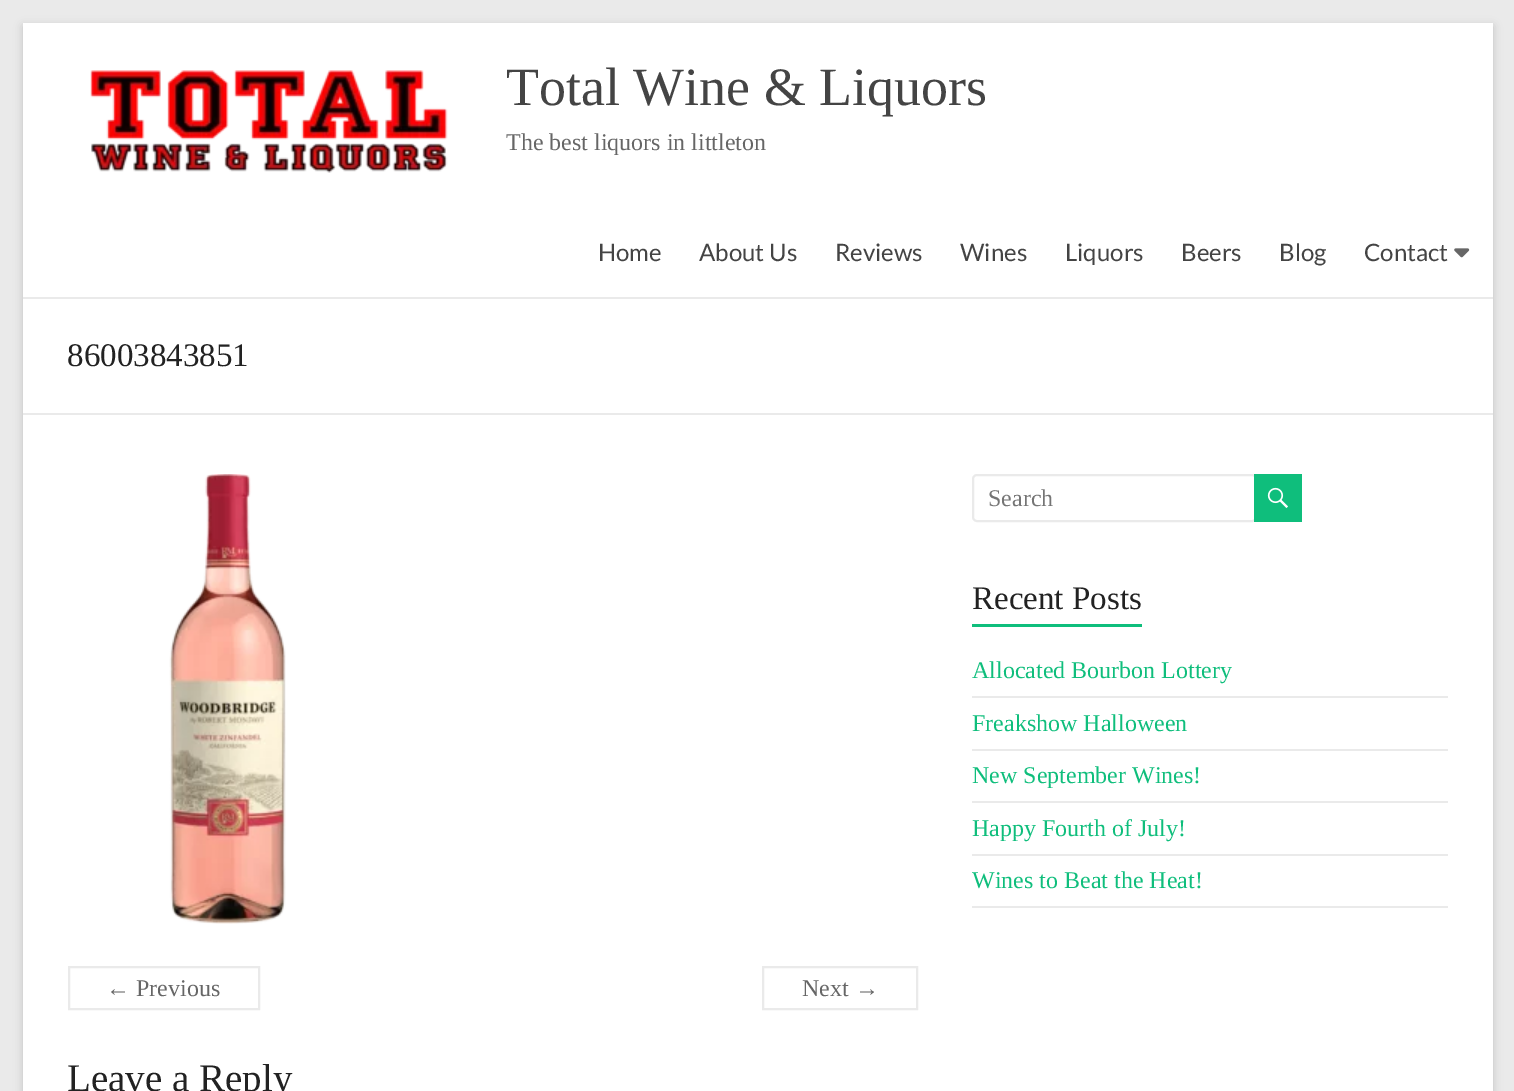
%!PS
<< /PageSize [1514 1091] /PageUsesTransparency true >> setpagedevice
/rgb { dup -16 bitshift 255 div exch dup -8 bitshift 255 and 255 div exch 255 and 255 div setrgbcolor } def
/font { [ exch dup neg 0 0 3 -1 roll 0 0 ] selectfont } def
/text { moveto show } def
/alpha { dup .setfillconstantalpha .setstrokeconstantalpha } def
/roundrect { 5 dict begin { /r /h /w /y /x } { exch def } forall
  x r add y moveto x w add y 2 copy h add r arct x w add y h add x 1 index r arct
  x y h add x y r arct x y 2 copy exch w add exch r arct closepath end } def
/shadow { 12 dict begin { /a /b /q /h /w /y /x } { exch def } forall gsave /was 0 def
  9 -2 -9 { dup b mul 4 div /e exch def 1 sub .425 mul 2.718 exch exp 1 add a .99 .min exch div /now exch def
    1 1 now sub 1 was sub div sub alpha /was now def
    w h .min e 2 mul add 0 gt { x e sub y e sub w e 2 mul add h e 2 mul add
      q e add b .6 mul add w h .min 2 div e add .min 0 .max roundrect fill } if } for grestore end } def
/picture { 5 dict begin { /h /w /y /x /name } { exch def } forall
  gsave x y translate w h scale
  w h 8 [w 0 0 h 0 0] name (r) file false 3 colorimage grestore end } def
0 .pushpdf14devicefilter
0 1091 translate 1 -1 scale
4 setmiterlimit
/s1 { /LiberationSerif-Regular 54 font 16#444444 rgb } def
/s2 { /LiberationSerif-Regular 24 font 16#666666 rgb } def
/s3 { /Lato-Regular 24 font 16#444444 rgb } def
/s4 { /LiberationSerif-Regular 33 font 16#222222 rgb } def
/s5 { /LiberationSerif-Regular 24 font 16#757575 rgb } def
/s6 { /LiberationSerif-Regular 24 font 16#0FBE7C rgb } def
/s7 { /LiberationSerif-Regular 39 font 16#222222 rgb } def
16#EAEAEA rgb
0 0 1514 1091 rectfill
16#646464 rgb
23 26 1470 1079 0 4.5 0.3 shadow
16#FFFFFF rgb
23 23 1470 1068 rectfill
16#EAEAEA rgb
23 297 1470 2 rectfill
(pic1.raw) 90 70 358 103 picture
s1
(Total Wine & Liquors) 506 105 text
s2
(The best liquors in littleton) 506 150 text
s3
(Home) 598 261 text
(About Us) 699 261 text
(Reviews) 835 261 text
(Wines) 960 261 text
(Liquors) 1065 261 text
(Beers) 1181 261 text
(Blog) 1279 261 text
(Contact) 1364 261 text
(pic2.raw) 1454 248 16 10 picture
16#EAEAEA rgb
23 413 1470 2 rectfill
s4
(86003843851) 67 366 text
16#EAEAEA rgb
2 setlinewidth
973 475 283 46 4 roundrect stroke
s5
(Search) 988 506 text
16#0FBE7C rgb
1254 474 48 48 rectfill
(pic3.raw) 1267 487 21 21 picture
s4
(Recent Posts) 972 609 text
16#0FBE7C rgb
972 624 170 3 rectfill
16#EAEAEA rgb
972 696 476 2 rectfill
s6
(Allocated Bourbon Lottery) 972 678 text
16#EAEAEA rgb
972 749 476 2 rectfill
s6
(Freakshow Halloween) 972 731 text
16#EAEAEA rgb
972 801 476 2 rectfill
s6
(New September Wines!) 972 783 text
16#EAEAEA rgb
972 854 476 2 rectfill
s6
(Happy Fourth of July!) 972 836 text
16#EAEAEA rgb
972 906 476 2 rectfill
s6
(Wines to Beat the Heat!) 972 888 text
(pic4.raw) 169 474 117 450 picture
16#EAEAEA rgb
69 967 190 42 rectstroke
s2
(← Previous) 106 996 text
16#EAEAEA rgb
763 967 154 42 rectstroke
s2
(Next →) 802 996 text
s7
(Leave a Reply) 67 1091 text
.poppdf14devicefilter showpage
